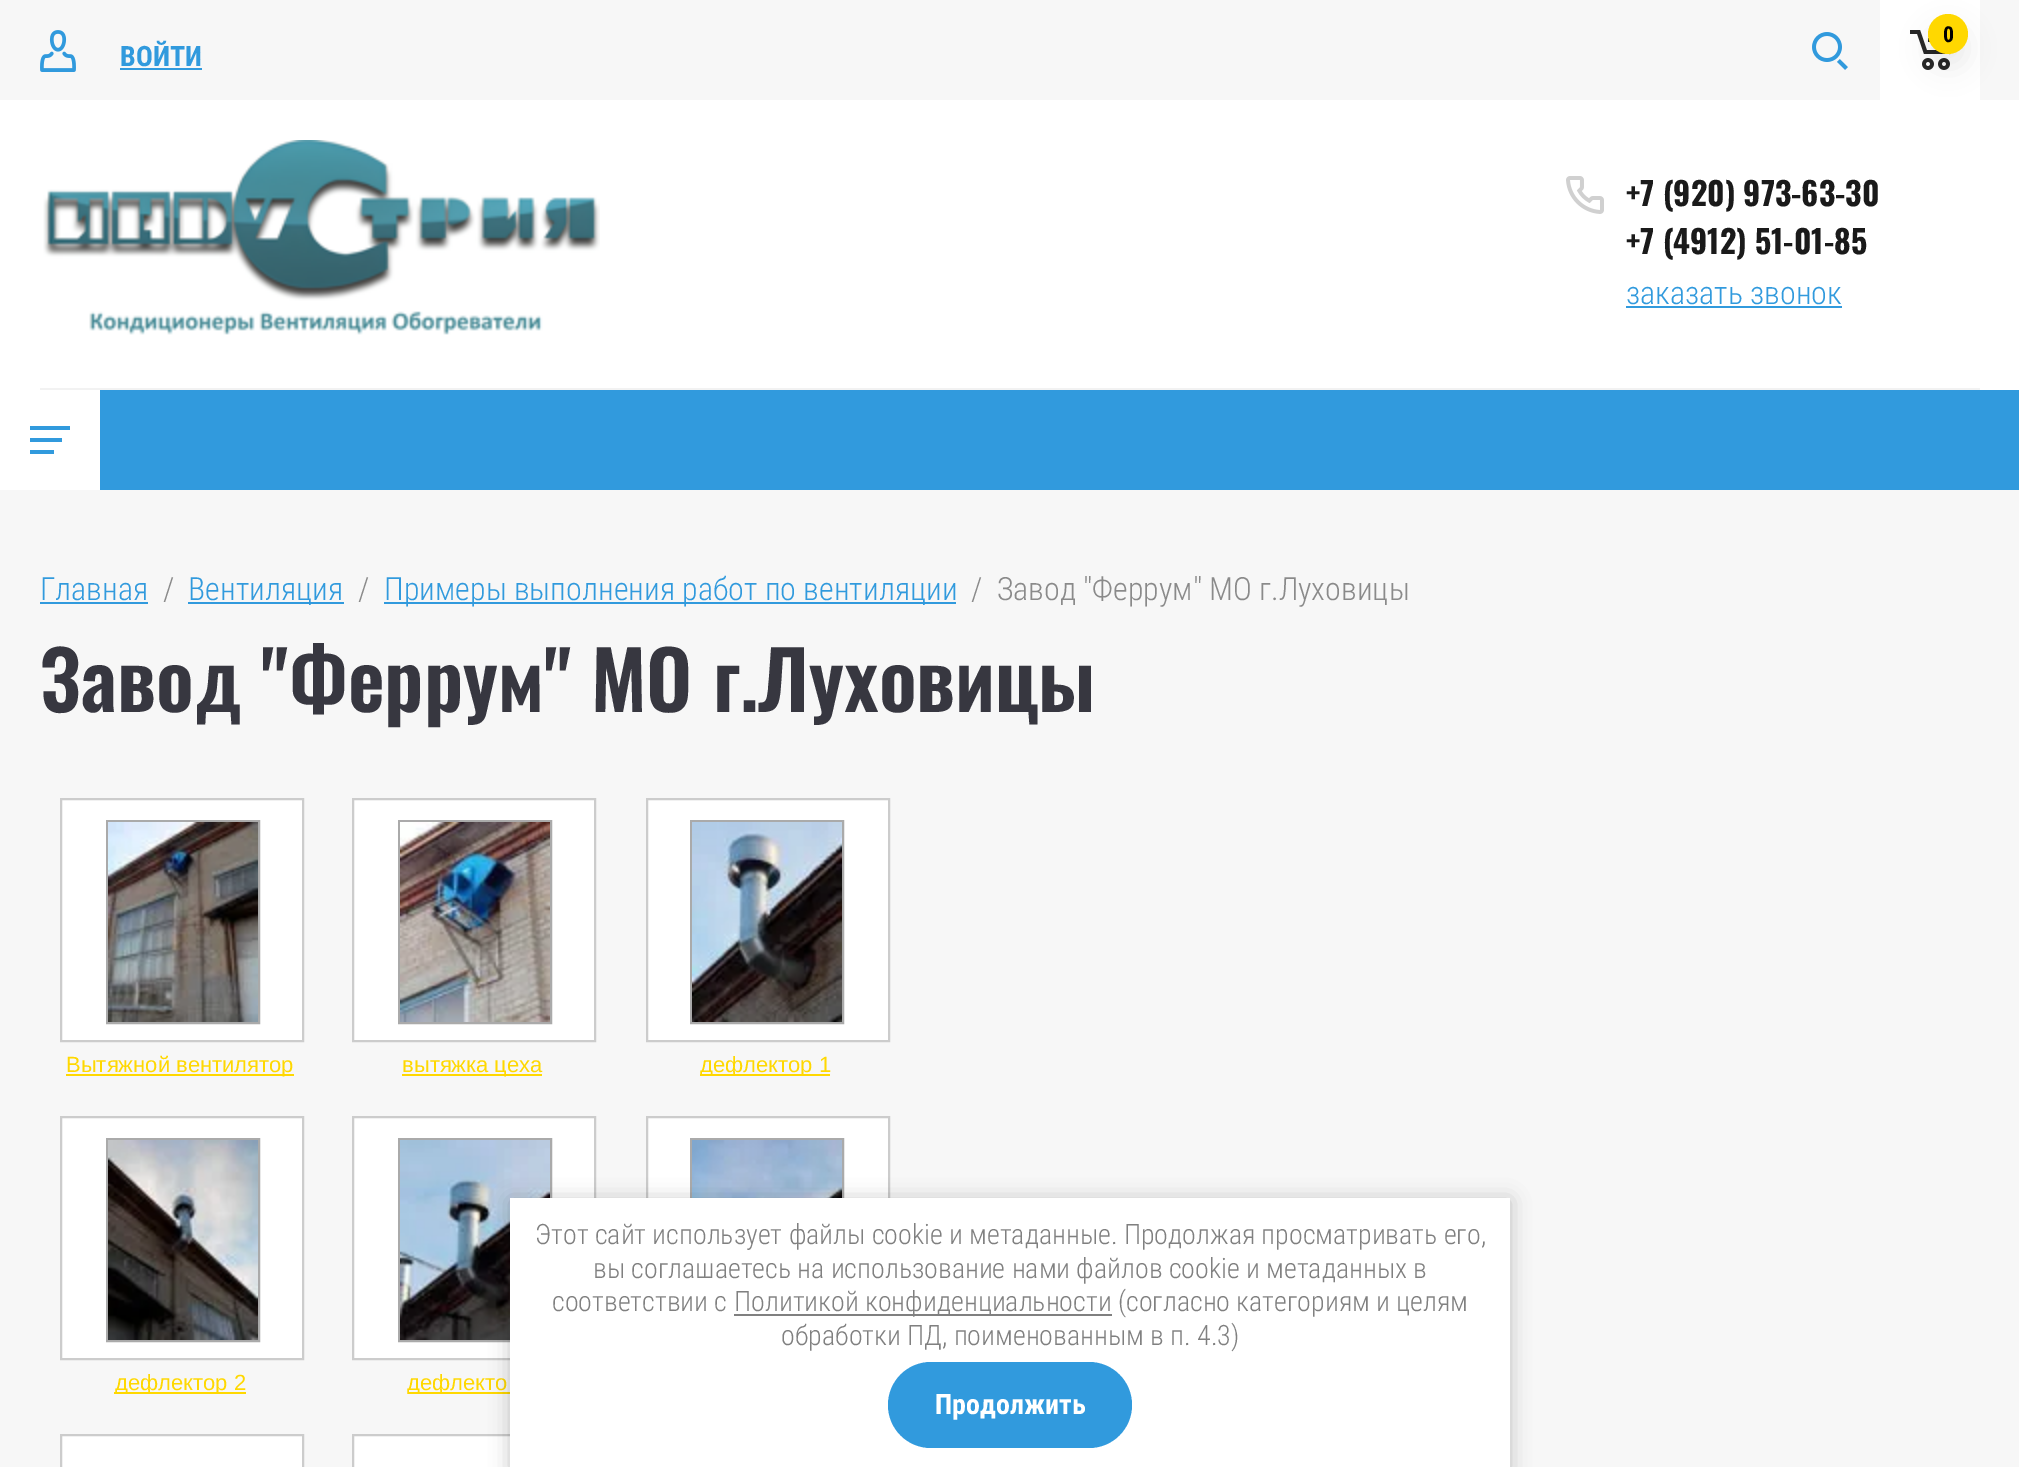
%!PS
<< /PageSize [2019 1467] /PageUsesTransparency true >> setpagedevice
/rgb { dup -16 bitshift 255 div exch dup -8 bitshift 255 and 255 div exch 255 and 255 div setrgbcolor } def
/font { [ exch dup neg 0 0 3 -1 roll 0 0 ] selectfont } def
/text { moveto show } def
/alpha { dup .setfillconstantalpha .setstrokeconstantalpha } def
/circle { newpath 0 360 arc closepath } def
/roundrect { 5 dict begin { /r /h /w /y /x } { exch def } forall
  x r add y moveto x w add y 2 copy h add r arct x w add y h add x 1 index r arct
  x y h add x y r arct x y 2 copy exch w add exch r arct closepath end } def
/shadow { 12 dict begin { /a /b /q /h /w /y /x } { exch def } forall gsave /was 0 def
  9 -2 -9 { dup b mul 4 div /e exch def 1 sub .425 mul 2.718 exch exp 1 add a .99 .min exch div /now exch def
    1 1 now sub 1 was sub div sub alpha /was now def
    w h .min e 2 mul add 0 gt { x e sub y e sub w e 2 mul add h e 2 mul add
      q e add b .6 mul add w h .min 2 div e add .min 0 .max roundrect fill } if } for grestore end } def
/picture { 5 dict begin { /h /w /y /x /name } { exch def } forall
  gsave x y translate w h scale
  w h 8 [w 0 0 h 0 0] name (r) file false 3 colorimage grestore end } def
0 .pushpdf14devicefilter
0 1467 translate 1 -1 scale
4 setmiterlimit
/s1 { /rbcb-Bold 22 font 16#000000 rgb } def
/s2 { /rbcb-Bold 28 font 16#319ADD rgb } def
/s3 { /Oswald-Bold 32 font 16#1A1A1A rgb } def
/s4 { /RobotoCondensed-Light 32 font 16#319ADD rgb } def
/s5 { /RobotoCondensed-Light 32 font 16#8A8A8A rgb } def
/s6 { /Oswald-SemiBold 80 font 16#373740 rgb } def
/s7 { /LiberationSans-Regular 22 font 16#FFD800 rgb } def
/s8 { /RobotoCondensed-Light 28 font 16#808080 rgb } def
/s9 { /rbcb-Bold 28 font 16#FFFFFF rgb } def
16#F7F7F7 rgb
0 0 2019 1467 rectfill
(pic1.raw) 1812 32 36 38 picture
16#FFFFFF rgb
1880 0 100 100 rectfill
(pic2.raw) 1910 30 41 40 picture
0 100 2019 290 rectfill
16#000000 rgb
1928 28 40 40 20 13 0.07 shadow
16#FFD800 rgb
1948 34 20 circle fill
s1
(0) 1943 42 text
(pic3.raw) 40 30 36 42 picture
s2
(ВОЙТИ) 120 66 text
120 68 82 2 rectfill
16#F2F2F2 rgb
40 388 1940 2 rectfill
(pic4.raw) 43 140 557 195 picture
(pic5.raw) 1566 176 38 38 picture
s3
(+7 \(920\) 973-63-30) 1626 206 text
(+7 \(4912\) 51-01-85) 1626 254 text
s4
(заказать звонок) 1626 304 text
1626 306 216 2 rectfill
100 390 1919 100 rectfill
16#FFFFFF rgb
0 390 100 100 rectfill
16#319ADD rgb
30 426 moveto 70 426 lineto 70 430 lineto 30 430 lineto closepath 30 438 moveto 62 438 lineto 62 442 lineto 30 442 lineto closepath 30 450 moveto 54 450 lineto 54 454 lineto 30 454 lineto closepath fill
(Главная) 40 600 text
40 602 108 2 rectfill
s5
(/) 163 600 text
16#319ADD rgb
188 602 156 2 rectfill
(Вентиляция) 188 600 text
s5
(/) 358 600 text
16#319ADD rgb
384 602 572 2 rectfill
(Примеры выполнения работ по вентиляции) 384 600 text
s5
(/  Завод "Феррум" МО г.Луховицы) 971 600 text
s6
(Завод "Феррум" МО г.Луховицы) 40 712 text
16#FFFFFF rgb
61 799 moveto 303 799 lineto 303 1041 lineto 61 1041 lineto closepath gsave fill grestore
16#CCCCCC rgb
2 setlinewidth
stroke
16#AAAAAA rgb
107 821 152 202 rectstroke
(pic6.raw) 108 822 150 200 picture
16#FFD800 rgb
66 1074 228 2 rectfill
s7
(Вытяжной вентилятор) 66 1072 text
16#FFFFFF rgb
353 799 moveto 595 799 lineto 595 1041 lineto 353 1041 lineto closepath gsave fill grestore
16#CCCCCC rgb
stroke
16#AAAAAA rgb
399 821 152 202 rectstroke
(pic7.raw) 400 822 150 200 picture
16#FFD800 rgb
402 1074 140 2 rectfill
(вытяжка цеха) 402 1072 text
16#FFFFFF rgb
647 799 moveto 889 799 lineto 889 1041 lineto 647 1041 lineto closepath gsave fill grestore
16#CCCCCC rgb
stroke
16#AAAAAA rgb
691 821 152 202 rectstroke
(pic8.raw) 692 822 150 200 picture
16#FFD800 rgb
700 1074 130 2 rectfill
gsave
646 1052 240 24 rectclip
(дефлектор 1) 700 1072 text
grestore
16#FFFFFF rgb
648 1118 240 80 rectfill
16#CCCCCC rgb
647 1117 242 242 rectstroke
16#AAAAAA rgb
691 1139 152 202 rectstroke
(pic9.raw) 692 1140 150 58 picture
16#FFFFFF rgb
61 1117 moveto 303 1117 lineto 303 1359 lineto 61 1359 lineto closepath gsave fill grestore
16#CCCCCC rgb
stroke
16#AAAAAA rgb
107 1139 152 202 rectstroke
(pic10.raw) 108 1140 150 200 picture
16#FFD800 rgb
114 1392 132 2 rectfill
gsave
60 1370 240 24 rectclip
(дефлектор 2) 115 1390 text
grestore
16#FFFFFF rgb
353 1117 moveto 595 1117 lineto 595 1359 lineto 353 1359 lineto closepath gsave fill grestore
16#CCCCCC rgb
stroke
16#AAAAAA rgb
399 1139 152 202 rectstroke
(pic11.raw) 400 1140 150 200 picture
16#FFD800 rgb
408 1392 102 2 rectfill
gsave
352 1370 240 24 rectclip
(дефлекто) 407 1390 text
grestore
16#FFFFFF rgb
61 1435 moveto 303 1435 lineto 303 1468 lineto 61 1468 lineto closepath gsave fill grestore
16#CCCCCC rgb
stroke
16#FFFFFF rgb
354 1436 156 31 rectfill
16#CCCCCC rgb
353 1435 242 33 rectstroke
16#000000 rgb
510 1200 1000 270 0 10 0.23 shadow
16#FFFFFF rgb
510 1198 1000 269 rectfill
s8
(Этот сайт использует файлы cookie и метаданные. Продолжая просматривать его,) 535 1244 text
(вы соглашаетесь на использование нами файлов cookie и метаданных в) 593 1278 text
(соответствии с) 552 1311 text
734 1314 378 2 rectfill
(Политикой конфиденциальности \(согласно категориям и целям) 734 1311 text
(обработки ПД, поименованным в п. 4.3\)) 781 1345 text
16#319ADD rgb
888 1362 244 86 43 roundrect fill
s9
(Продолжить) 935 1414 text
.poppdf14devicefilter showpage
